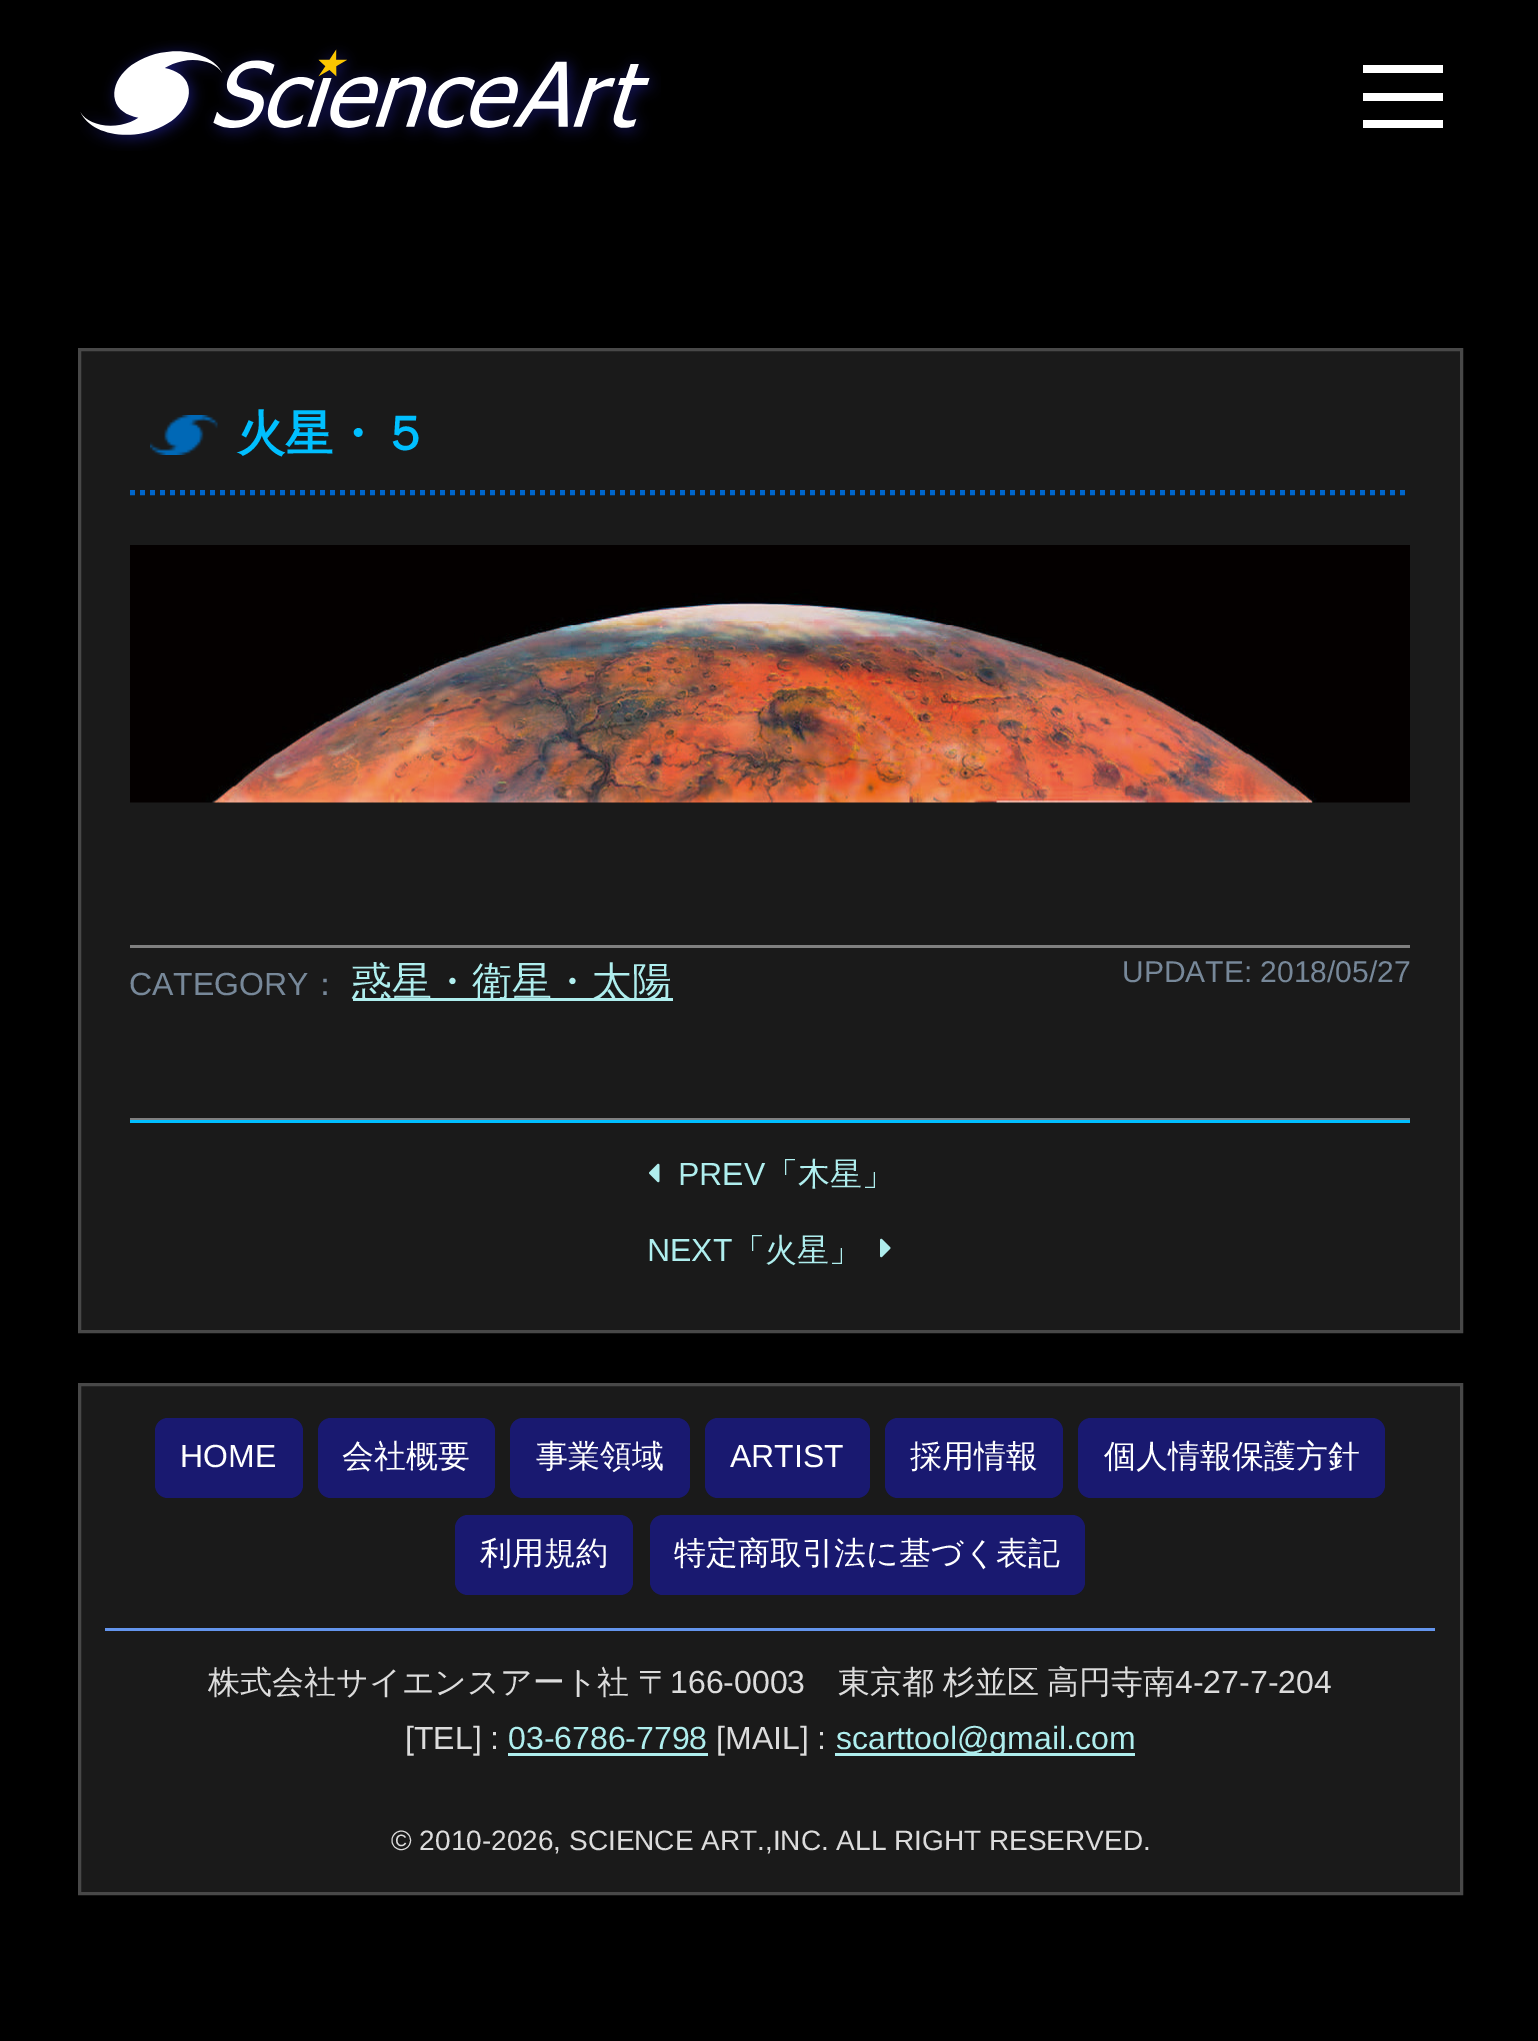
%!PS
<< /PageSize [1538 2041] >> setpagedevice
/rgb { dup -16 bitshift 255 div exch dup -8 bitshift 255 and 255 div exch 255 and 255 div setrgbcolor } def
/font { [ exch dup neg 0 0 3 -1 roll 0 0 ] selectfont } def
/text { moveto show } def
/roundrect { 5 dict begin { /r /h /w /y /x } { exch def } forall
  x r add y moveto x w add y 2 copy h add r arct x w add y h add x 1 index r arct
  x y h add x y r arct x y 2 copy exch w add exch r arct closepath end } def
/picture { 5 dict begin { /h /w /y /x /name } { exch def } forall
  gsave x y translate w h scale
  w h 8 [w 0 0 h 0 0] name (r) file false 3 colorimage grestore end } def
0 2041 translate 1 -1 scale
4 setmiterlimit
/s1 { /WenQuanYiZenHei-Bold 48 font 16#00BFFF rgb } def
/s2 { /LiberationSans-Regular 32 font 16#778899 rgb } def
/s3 { /WenQuanYiZenHei-Medium 32 font 16#778899 rgb } def
/s4 { /WenQuanYiZenHei-Medium 40 font 16#AFEEEE rgb } def
/s5 { /LiberationSans-Regular 30 font 16#778899 rgb } def
/s6 { /LiberationSans-Regular 32 font 16#AFEEEE rgb } def
/s7 { /WenQuanYiZenHei-Medium 32 font 16#AFEEEE rgb } def
/s8 { /LiberationSans-Regular 32 font 16#FFFFFF rgb } def
/s9 { /WenQuanYiZenHei-Medium 32 font 16#FFFFFF rgb } def
/s10 { /LiberationSans-Regular 32 font 16#DCDCDC rgb } def
/s11 { /LiberationSans-Regular 28 font 16#DCDCDC rgb } def
16#000000 rgb
0 0 1538 2041 rectfill
(pic1.raw) 80 40 581 111 picture
16#FFFFFF rgb
1363 65 80 8 rectfill
1363 93 80 8 rectfill
1363 120 80 8 rectfill
16#1A1A1A rgb
79.5 349.5 moveto 1461.5 349.5 lineto 1461.5 1331.5 lineto 79.5 1331.5 lineto closepath gsave fill grestore
16#484848 rgb
3 setlinewidth
stroke
16#0066CC rgb
5 setlinewidth
[5 5] 0 setdash
130 492.5 moveto 1410 492.5 lineto stroke
(pic2.raw) 150 415 68 40 picture
s1
(火星・５) 237 450 text
(pic3.raw) 130 545 1280 258 picture
16#808080 rgb
130 945 1280 3 rectfill
130 1118 1280 2 rectfill
s2
(CATEGORY) 129 995 text
s3
(：) 309 995 text
16#AFEEEE rgb
353 998 320 3 rectfill
s4
(惑星・衛星・太陽) 352 995 text
s5
(UPDATE: 2018/05/27) 1122 982 text
16#00BFFF rgb
130 1120 1280 3 rectfill
(pic4.raw) 649 1163 11 20 picture
s6
(PREV) 678 1185 text
s7
(「木星」) 766 1185 text
s6
(NEXT) 647 1261 text
s7
(「火星」) 733 1261 text
(pic5.raw) 880 1238 11 20 picture
16#1A1A1A rgb
79.5 1384.5 moveto 1461.5 1384.5 lineto 1461.5 1893.5 lineto 79.5 1893.5 lineto closepath gsave fill grestore
16#484848 rgb
3 setlinewidth
[] 0 setdash
stroke
16#6495ED rgb
105 1628 1330 3 rectfill
16#191970 rgb
155 1418 148 80 13 roundrect fill
s8
(HOME) 180 1467 text
16#191970 rgb
318 1418 177 80 13 roundrect fill
s9
(会社概要) 342 1467 text
16#191970 rgb
510 1418 180 80 13 roundrect fill
s9
(事業領域) 536 1467 text
16#191970 rgb
705 1418 165 80 13 roundrect fill
s8
(ARTIST) 730 1467 text
16#191970 rgb
885 1418 178 80 13 roundrect fill
s9
(採用情報) 910 1467 text
16#191970 rgb
1078 1418 307 80 13 roundrect fill
s9
(個人情報保護方針) 1104 1467 text
16#191970 rgb
455 1515 178 80 13 roundrect fill
s9
(利用規約) 480 1564 text
16#191970 rgb
650 1515 435 80 13 roundrect fill
s9
(特定商取引法に基づく表記) 674 1564 text
16#DCDCDC rgb
208 1693 moveto -1 0 32 (株式会社サイエンスアート社 〒) widthshow
s10
(166-0003) 670 1693 text
/WenQuanYiZenHei-Medium 32 font
838 1693 moveto -1 0 32 (東京都 杉並区 高円寺南) widthshow
s10
(4-27-7-204) 1175 1693 text
([TEL] :) 405 1749 text
s6
(03-6786-7798) 508 1749 text
508 1753 200 3 rectfill
s10
([MAIL] :) 716 1749 text
16#AFEEEE rgb
835 1753 300 3 rectfill
(scarttool@gmail.com) 836 1749 text
s11
(© 2010-2026, SCIENCE ART.,INC. ALL RIGHT RESERVED.) 391 1850 text
showpage
